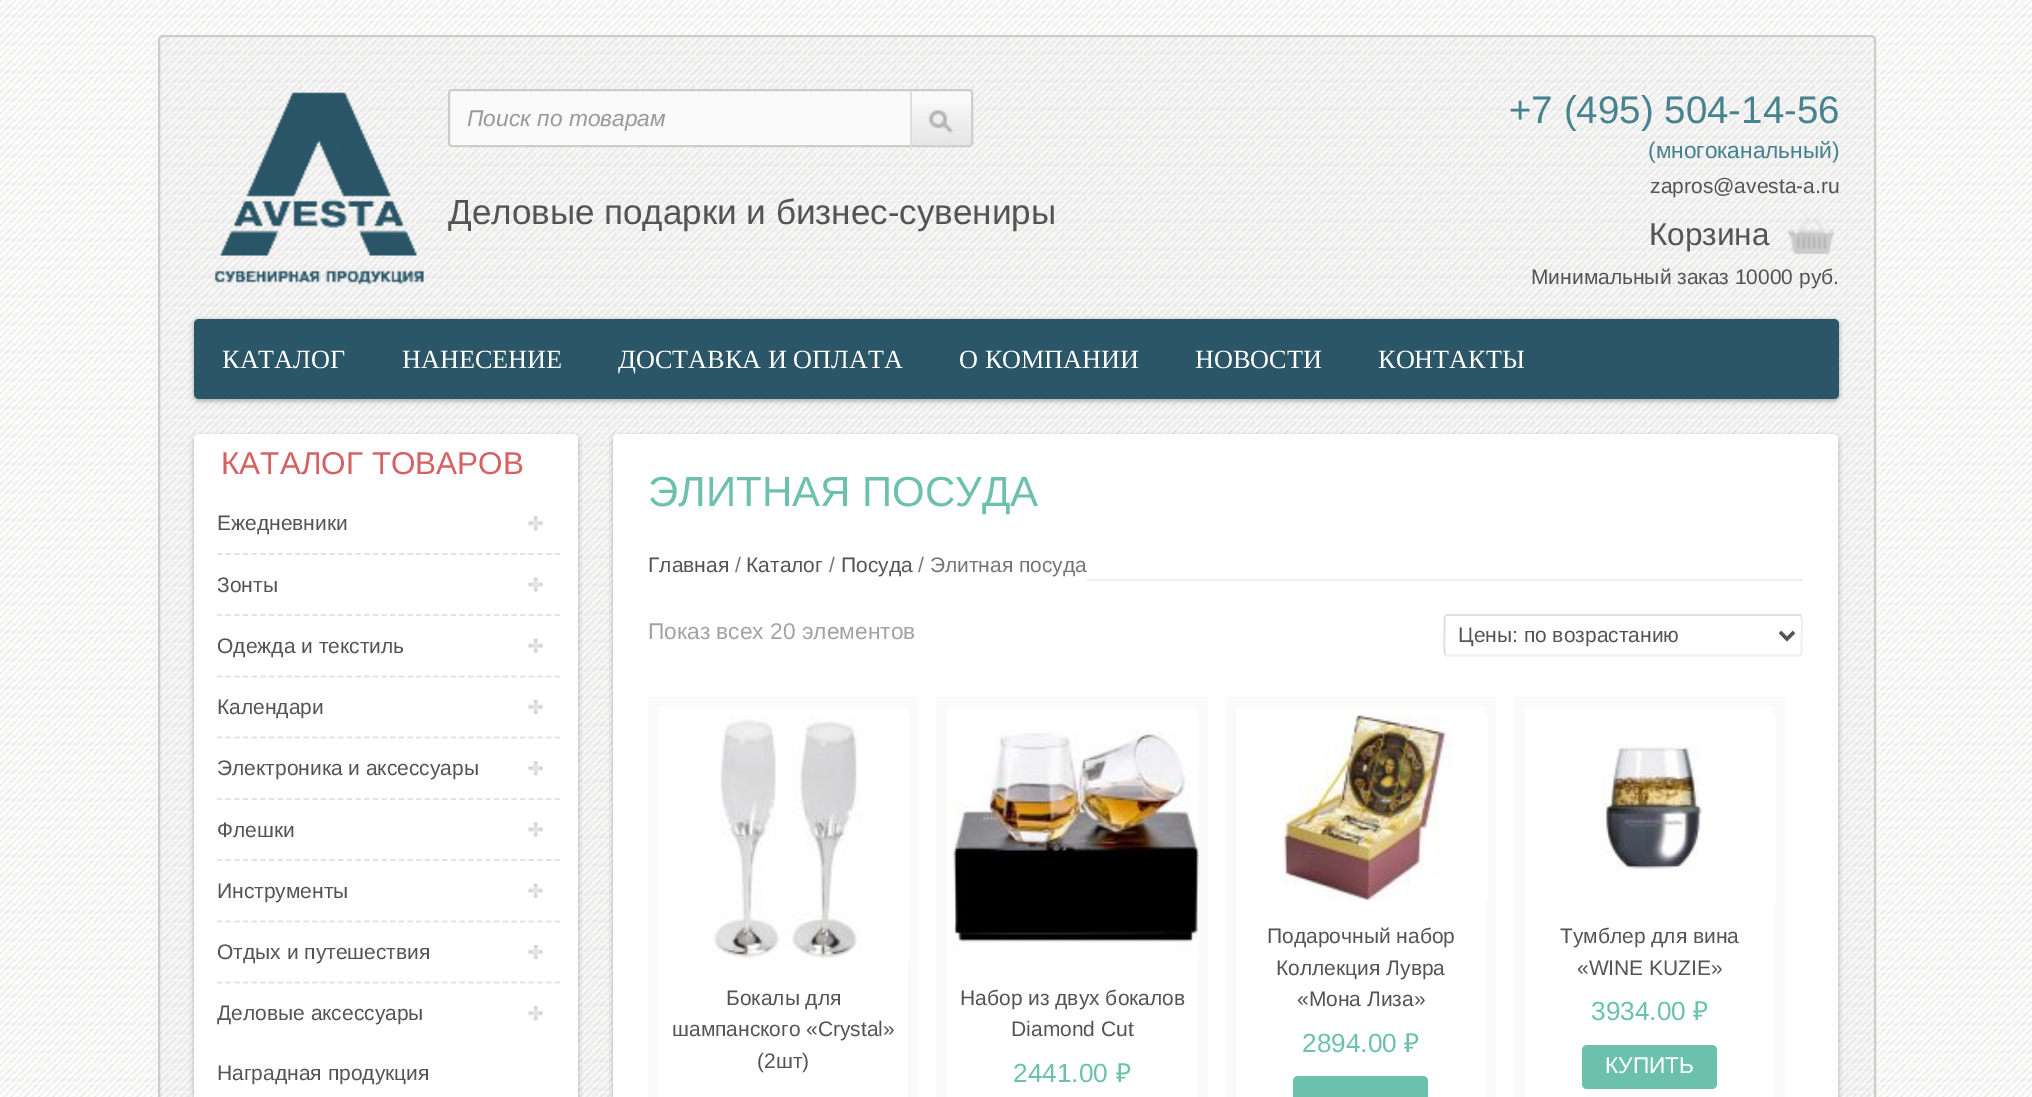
%!PS
<< /PageSize [2032 1097] /PageUsesTransparency true >> setpagedevice
/rgb { dup -16 bitshift 255 div exch dup -8 bitshift 255 and 255 div exch 255 and 255 div setrgbcolor } def
/font { [ exch dup neg 0 0 3 -1 roll 0 0 ] selectfont } def
/text { moveto show } def
/alpha { dup .setfillconstantalpha .setstrokeconstantalpha } def
/roundrect { 5 dict begin { /r /h /w /y /x } { exch def } forall
  x r add y moveto x w add y 2 copy h add r arct x w add y h add x 1 index r arct
  x y h add x y r arct x y 2 copy exch w add exch r arct closepath end } def
/shadow { 12 dict begin { /a /b /q /h /w /y /x } { exch def } forall gsave /was 0 def
  9 -2 -9 { dup b mul 4 div /e exch def 1 sub .425 mul 2.718 exch exp 1 add a .99 .min exch div /now exch def
    1 1 now sub 1 was sub div sub alpha /was now def
    w h .min e 2 mul add 0 gt { x e sub y e sub w e 2 mul add h e 2 mul add
      q e add b .6 mul add w h .min 2 div e add .min 0 .max roundrect fill } if } for grestore end } def
/picture { 5 dict begin { /h /w /y /x /name } { exch def } forall
  gsave x y translate w h scale
  w h 8 [w 0 0 h 0 0] name (r) file false 3 colorimage grestore end } def
0 .pushpdf14devicefilter
0 1097 translate 1 -1 scale
4 setmiterlimit
/s1 { /LiberationSans-Regular 38.5 font 16#47838E rgb } def
/s2 { /LiberationSans-Regular 22.75 font 16#47838E rgb } def
/s3 { /LiberationSans-Regular 21 font 16#545454 rgb } def
/s4 { /LiberationSans-Italic 22.75 font 16#999999 rgb } def
/s5 { /LiberationSans-Regular 35 font 16#545454 rgb } def
/s6 { /LiberationSans-Regular 31.5 font 16#545454 rgb } def
/s7 { /LiberationSerif-Regular 26.25 font 16#FFFFFF rgb } def
/s8 { /LiberationSans-Regular 31.5 font 16#D56262 rgb } def
/s9 { /LiberationSans-Regular 42 font 16#6CC1AD rgb } def
/s10 { /LiberationSans-Regular 21 font 16#767676 rgb } def
/s11 { /LiberationSans-Regular 22.75 font 16#A3A3A3 rgb } def
/s12 { /LiberationSans-Regular 26.25 font 16#6CC1AD rgb } def
/s13 { /NotoSans-Regular 26.25 font 16#6CC1AD rgb } def
/s14 { /LiberationSans-Regular 22.75 font 16#FFFFFF rgb } def
16#FFFFFF rgb
0 0 2032 1097 rectfill
(pic1.raw) 0 0 2032 1097 picture
16#F8F8F8 rgb
158 35 1718 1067 5 roundrect fill
(pic2.raw) 158 35 1718 1062 picture
16#CCCCCC rgb
2 setlinewidth
159 36 1716 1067 4 roundrect stroke
(pic3.raw) 214 92 210 194 picture
s1
(+7 \(495\) 504-14-56) 1509 123 text
s2
(\(многоканальный\)) 1648 158 text
s3
(zapros@avesta-a.ru) 1650 193 text
16#FAFAFA rgb
449 90 523 56 3 roundrect gsave fill grestore
16#CCCCCC rgb
stroke
s4
(Поиск по товарам) 467 126 text
(pic4.raw) 912 104 60 42 picture
16#DFDFDF rgb
910 91 2 58 rectfill
s3
(Минимальный заказ 10000 руб.) 1531 284 text
s5
(Деловые подарки и бизнес-сувениры) 448 224 text
s6
(Корзина) 1649 245 text
(pic5.raw) 1788 217 46 37 picture
16#000000 rgb
194 320 1645 81 5 2.5 0.3 shadow
16#2A5667 rgb
194 319 1645 80 5 roundrect fill
s7
(КАТАЛОГ) 222 368 text
(НАНЕСЕНИЕ) 402 368 text
(ДОСТАВКА И ОПЛАТА) 618 368 text
(О КОМПАНИИ) 959 368 text
(НОВОСТИ) 1195 368 text
(КОНТАКТЫ) 1378 368 text
16#000000 rgb
194 436 384 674 5 2.5 0.3 shadow
16#FFFFFF rgb
194 434 384 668 5 roundrect fill
s8
(КАТАЛОГ ТОВАРОВ) 221 474 text
s3
(Ежедневники) 217 530 text
(pic6.raw) 528 516 15 15 picture
16#E3E3E3 rgb
1.8 setlinewidth
[5.25 3.41] 0 setdash
217 554 moveto 560 554 lineto stroke
s3
(Зонты) 217 592 text
(pic7.raw) 528 577 15 15 picture
16#E3E3E3 rgb
217 615 moveto 560 615 lineto stroke
s3
(Одежда и текстиль) 217 653 text
(pic8.raw) 528 638 15 15 picture
16#E3E3E3 rgb
217 676.5 moveto 560 676.5 lineto stroke
s3
(Календари) 217 714 text
(pic9.raw) 528 700 15 14 picture
16#E3E3E3 rgb
217 737.5 moveto 560 737.5 lineto stroke
s3
(Электроника и аксессуары) 217 775 text
(pic6.raw) 528 761 15 15 picture
16#E3E3E3 rgb
217 799 moveto 560 799 lineto stroke
s3
(Флешки) 217 837 text
(pic7.raw) 528 822 15 15 picture
16#E3E3E3 rgb
217 860 moveto 560 860 lineto stroke
s3
(Инструменты) 217 898 text
(pic8.raw) 528 883 15 15 picture
16#E3E3E3 rgb
217 921.5 moveto 560 921.5 lineto stroke
s3
(Отдых и путешествия) 217 959 text
(pic9.raw) 528 945 15 14 picture
16#E3E3E3 rgb
217 982.5 moveto 560 982.5 lineto stroke
s3
(Деловые аксессуары) 217 1020 text
(pic6.raw) 528 1006 15 15 picture
(Наградная продукция) 217 1080 text
16#000000 rgb
613 436 1225 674 5 2.5 0.3 shadow
16#FFFFFF rgb
613 434 1225 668 5 roundrect fill
s9
(ЭЛИТНАЯ ПОСУДА) 648 506 text
s3
(Главная) 648 572 text
s10
(/) 735 572 text
s3
(Каталог) 746 572 text
s10
(/) 829 572 text
s3
(Посуда) 841 572 text
s10
(/ Элитная посуда) 918 572 text
16#EEEEEE rgb
1087 579 716 2 rectfill
s11
(Показ всех 20 элементов) 648 639 text
16#EFEFEF rgb
[] 0 setdash
1801 616 moveto 1803 618 1801.5 637.5 1801.5 641 curveto 1801.5 647 lineto 1801.5 648.5 1803 655.5 1799 655.5 curveto 1446.5 655.5 lineto 1445.5 654.5 lineto stroke
16#DFDFDF rgb
1445.5 654.5 moveto 1443.5 652.5 1444.5 633 1444.5 629.5 curveto 1444.5 623.5 lineto 1444.5 622 1443.5 615 1447 615 curveto 1800 615 lineto 1801 616 lineto stroke
16#555555 rgb
3.5 setlinewidth
1780 632 moveto 1787 639 lineto 1794 632 lineto stroke
s3
(Цены: по возрастанию) 1458 642 text
16#FAFAF8 rgb
648 697 271 400 rectfill
16#FFFFFF rgb
658 707 250 390 rectfill
(pic10.raw) 709 716 152 243 picture
908 716 2 245 rectfill
s3
(Бокалы для) 726 1005 text
(шампанского «Crystal») 672 1036 text
(\(2шт\)) 757 1068 text
16#FAFAF8 rgb
936 697 272 400 rectfill
16#FFFFFF rgb
947 707 250 390 rectfill
1197 716 2 245 rectfill
(pic11.raw) 953 730 246 220 picture
s3
(Набор из двух бокалов) 960 1005 text
(Diamond Cut) 1011 1036 text
s12
(2441.00) 1013 1082 text
s13
(₽) 1116 1082 text
16#FAFAF8 rgb
1225 697 271 400 rectfill
16#FFFFFF rgb
1236 707 250 390 rectfill
(pic12.raw) 1277 715 176 185 picture
1486 716 2 184 rectfill
s3
(Подарочный набор) 1267 943 text
(Коллекция Лувра) 1276 975 text
(«Мона Лиза») 1297 1006 text
s12
(2894.00) 1302 1052 text
s13
(₽) 1404 1052 text
1293 1076 135 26 5 roundrect fill
16#FAFAF8 rgb
1514 697 271 400 rectfill
16#FFFFFF rgb
1525 707 249 390 rectfill
(pic13.raw) 1600 744 102 126 picture
1774 716 2 184 rectfill
1774 900 1 4 rectfill
s3
(Тумблер для вина) 1560 943 text
(«WINE KUZIE») 1577 975 text
s12
(3934.00) 1591 1020 text
s13
(₽) 1693 1020 text
1582 1045 135 44 5 roundrect fill
s14
(КУПИТЬ) 1605 1073 text
.poppdf14devicefilter showpage
